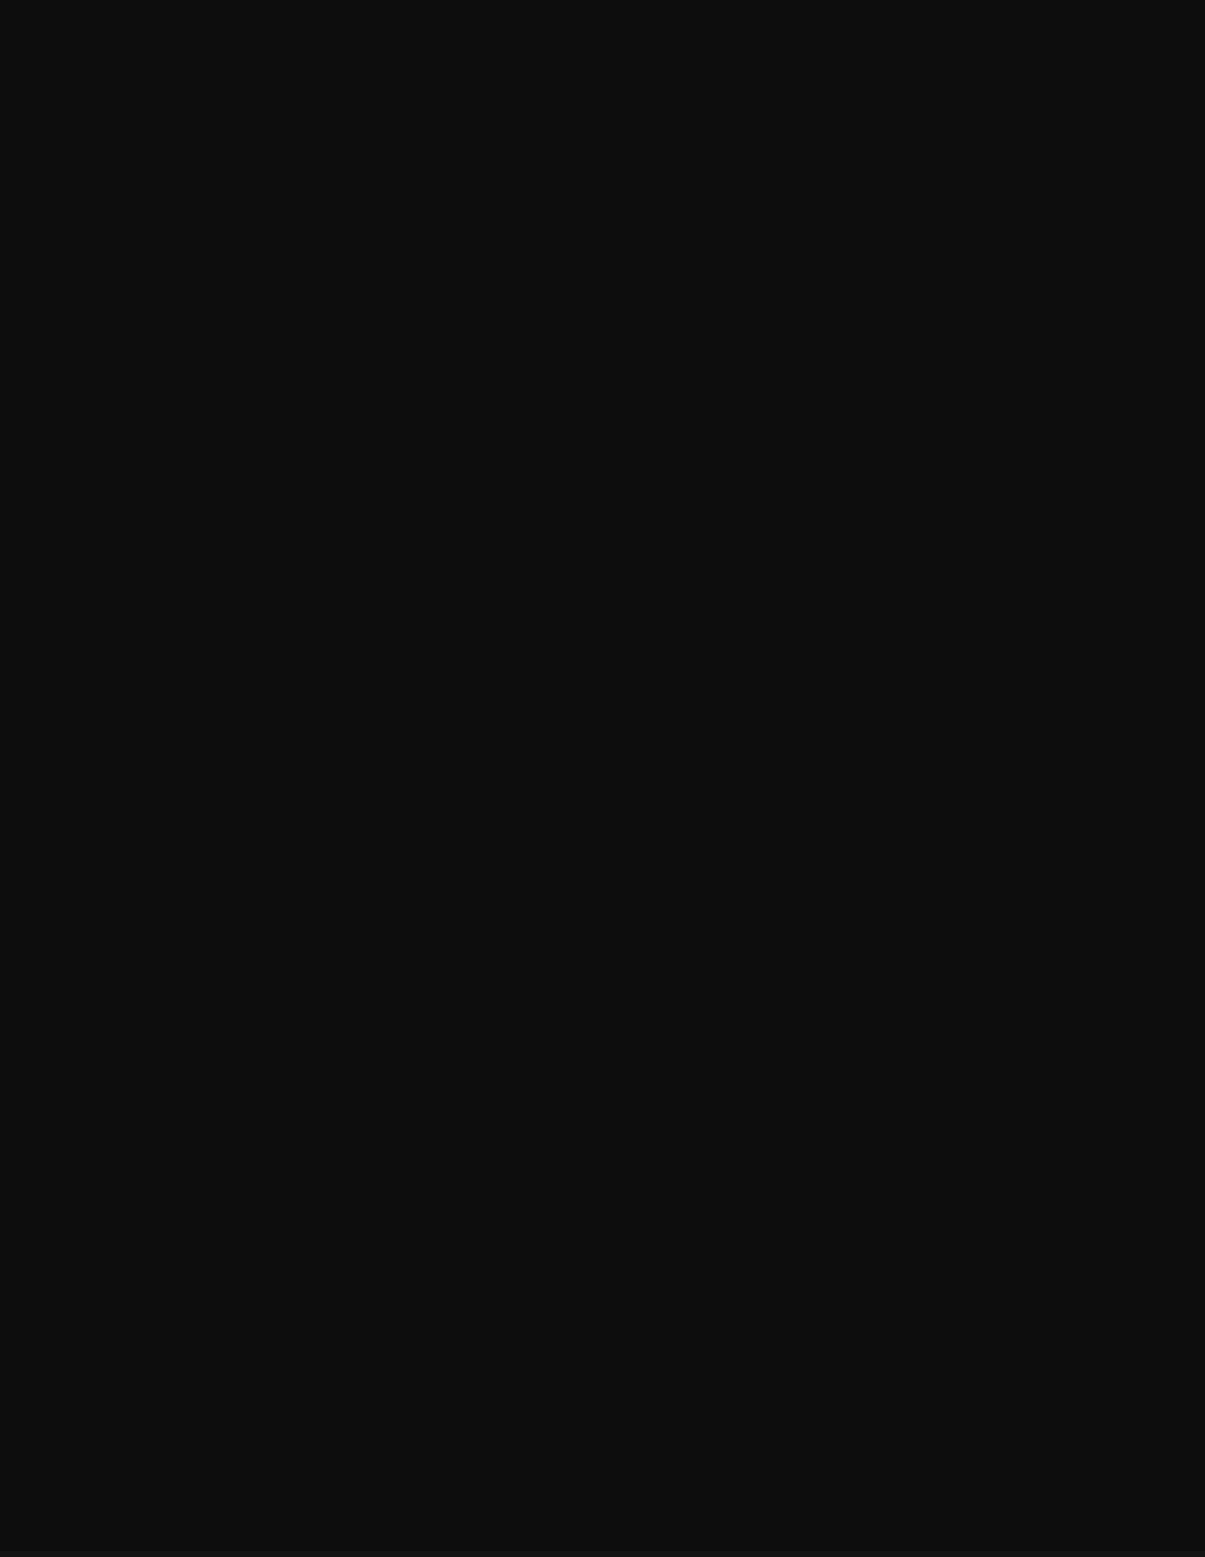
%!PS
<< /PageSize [1205 1557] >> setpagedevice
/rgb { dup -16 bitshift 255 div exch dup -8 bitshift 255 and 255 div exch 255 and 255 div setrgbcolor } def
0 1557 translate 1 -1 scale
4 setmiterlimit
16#0D0D0D rgb
0 0 1205 1557 rectfill
16#141414 rgb
0 1551 1205 6 rectfill
showpage
